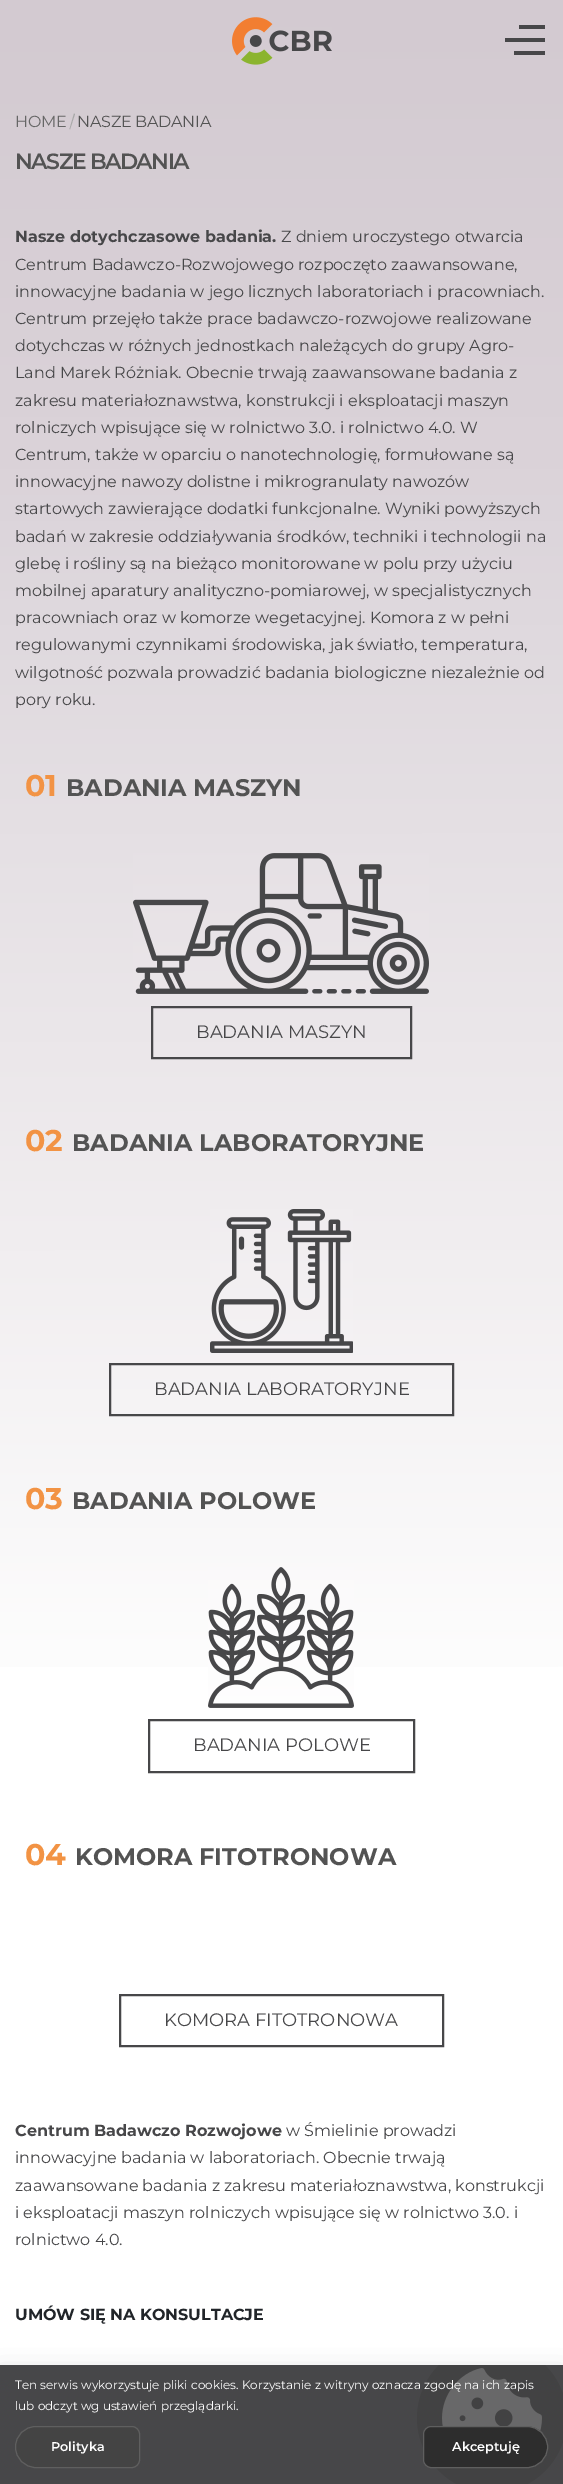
%!PS
<< /PageSize [563 2484] /PageUsesTransparency true >> setpagedevice
/rgb { dup -16 bitshift 255 div exch dup -8 bitshift 255 and 255 div exch 255 and 255 div setrgbcolor } def
/font { [ exch dup neg 0 0 3 -1 roll 0 0 ] selectfont } def
/text { moveto show } def
/alpha { dup .setfillconstantalpha .setstrokeconstantalpha } def
/circle { newpath 0 360 arc closepath } def
/roundrect { 5 dict begin { /r /h /w /y /x } { exch def } forall
  x r add y moveto x w add y 2 copy h add r arct x w add y h add x 1 index r arct
  x y h add x y r arct x y 2 copy exch w add exch r arct closepath end } def
/shadow { 12 dict begin { /a /b /q /h /w /y /x } { exch def } forall gsave /was 0 def
  9 -2 -9 { dup b mul 4 div /e exch def 1 sub .425 mul 2.718 exch exp 1 add a .99 .min exch div /now exch def
    1 1 now sub 1 was sub div sub alpha /was now def
    w h .min e 2 mul add 0 gt { x e sub y e sub w e 2 mul add h e 2 mul add
      q e add b .6 mul add w h .min 2 div e add .min 0 .max roundrect fill } if } for grestore end } def
/picture { 5 dict begin { /h /w /y /x /name } { exch def } forall
  gsave x y translate w h scale
  w h 8 [w 0 0 h 0 0] name (r) file false 3 colorimage grestore end } def
0 .pushpdf14devicefilter
0 2484 translate 1 -1 scale
4 setmiterlimit
/s1 { /Montserrat-Bold 16 font 16#474749 rgb } def
/s2 { /Montserrat-Regular 16 font 16#474749 rgb } def
/s3 { /Montserrat-Bold 30 font 16#F29344 rgb } def
/s4 { /Montserrat-Bold 24 font 16#535353 rgb } def
/s5 { /Montserrat-Regular 18 font 16#474749 rgb } def
/s6 { /Montserrat-Bold 16 font 16#212529 rgb } def
/s7 { /Montserrat-Regular 12 font 16#FFFFFF rgb } def
/s8 { /Montserrat-SemiBold 12.75 font 16#FFFFFF rgb } def
16#FFFFFF rgb
0 0 563 2484 rectfill
gsave 0 0 moveto 563 0 lineto 563 1667 lineto 0 1667 lineto closepath clip newpath
<< /ShadingType 2 /ColorSpace /DeviceRGB /Coords [281 0 282 1739] /Extend [true true] /Function << /FunctionType 3 /Domain [0 1] /Functions [<< /FunctionType 2 /Domain [0 1] /C0 [0.827 0.792 0.82] /C1 [0.855 0.824 0.847] /N 1 >> << /FunctionType 2 /Domain [0 1] /C0 [0.855 0.824 0.847] /C1 [1 1 1] /N 1 >>] /Bounds [0.25] /Encode [0 1 0 1] >> >> shfill grestore
(pic1.raw) 232 17 100 48 picture
16#474749 rgb
519 25 26 4 rectfill
505 38 40 4 rectfill
514 51 31 4 rectfill
/Montserrat-Regular 16 font
16#666666 rgb
15 127 moveto -0.25 0 (HOME) ashow
16#A9A9A9 rgb
75 114 moveto 70 129.5 lineto 69.5 129 lineto 74 113.5 lineto closepath fill
16#535353 rgb
77 127 moveto -0.25 0 (NASZE BADANIA) ashow
/Montserrat-SemiBold 22 font
15 169 moveto -1.5 0 (NASZE BADANIA) ashow
s1
(Nasze dotychczasowe badania.) 15 242 text
s2
(Z dniem uroczystego otwarcia) 281 242 text
(Centrum Badawczo-Rozwojowego rozpoczęto zaawansowane,) 15 270 text
(innowacyjne badania w jego licznych laboratoriach i pracowniach.) 15 297 text
(Centrum przejęło także prace badawczo-rozwojowe realizowane) 15 324 text
(dotychczas w różnych jednostkach należących do grupy Agro-) 15 351 text
(Land Marek Różniak. Obecnie trwają zaawansowane badania z) 15 378 text
(zakresu materiałoznawstwa, konstrukcji i eksploatacji maszyn) 15 406 text
(rolniczych wpisujące się w rolnictwo 3.0. i rolnictwo 4.0. W) 15 433 text
(Centrum, także w oparciu o nanotechnologię, formułowane są) 15 460 text
(innowacyjne nawozy dolistne i mikrogranulaty nawozów) 15 487 text
(startowych zawierające dodatki funkcjonalne. Wyniki powyższych) 15 514 text
(badań w zakresie oddziaływania środków, techniki i technologii na) 15 542 text
(glebę i rośliny są na bieżąco monitorowane w polu przy użyciu) 15 569 text
(mobilnej aparatury analityczno-pomiarowej, w specjalistycznych) 15 596 text
(pracowniach oraz w komorze wegetacyjnej. Komora z w pełni) 15 623 text
(regulowanymi czynnikami środowiska, jak światło, temperatura,) 15 650 text
(wilgotność pozwala prowadzić badania biologiczne niezależnie od) 15 678 text
(pory roku.) 15 705 text
s3
(01) 25 796 text
s4
(BADANIA MASZYN) 66 796 text
(pic2.raw) 133 853 296 141 picture
16#474749 rgb
2 setlinewidth
152 1007 259 51 rectstroke
s5
(BADANIA MASZYN) 196 1038 text
s3
(02) 25 1151 text
s4
(BADANIA LABORATORYJNE) 72 1151 text
(pic3.raw) 210 1209 143 144 picture
16#474749 rgb
110 1364 343 51 rectstroke
s5
(BADANIA LABORATORYJNE) 154 1395 text
s3
(03) 25 1509 text
s4
(BADANIA POLOWE) 72 1509 text
(pic4.raw) 208 1567 146 141 picture
16#474749 rgb
149 1720 265 52 rectstroke
s5
(BADANIA POLOWE) 193 1751 text
s3
(04) 25 1865 text
s4
(KOMORA FITOTRONOWA) 75 1865 text
16#474749 rgb
120 1995 323 51 rectstroke
s5
(KOMORA FITOTRONOWA) 164 2026 text
s1
(Centrum Badawczo Rozwojowe) 15 2136 text
s2
(w Śmielinie prowadzi) 286 2136 text
(innowacyjne badania w laboratoriach. Obecnie trwają) 15 2163 text
(zaawansowane badania z zakresu materiałoznawstwa, konstrukcji) 15 2191 text
(i eksploatacji maszyn rolniczych wpisujące się w rolnictwo 3.0. i) 15 2218 text
(rolnictwo 4.0.) 15 2245 text
s6
(UMÓW SIĘ NA KONSULTACJE) 15 2320 text
16#000000 rgb
0 2379 563 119 0 14 0.25 shadow
16#474749 rgb
0 2365 563 119 rectfill
gsave
0 2365 563 119 rectclip
16#424243 rgb
492 2418 75 circle fill
grestore
(pic5.raw) 442 2368 100 63 picture
s7
(Ten serwis wykorzystuje pliki cookies. Korzystanie z witryny oznacza zgodę na ich zapis) 15 2389 text
(lub odczyt wg ustawień przeglądarki.) 15 2410 text
16#444444 rgb
36 2426.5 moveto 132 2426.5 lineto 136 2426.5 139.5 2430 139.5 2434 curveto 139.5 2460 lineto 139.5 2464 136 2467.5 132 2467.5 curveto 36 2467.5 lineto 24.5 2467.5 15.5 2458.5 15.5 2447 curveto 15.5 2435.5 24.5 2426.5 36 2426.5 curveto closepath gsave fill grestore
16#5F5F5F rgb
1 setlinewidth
stroke
s8
(Polityka) 51 2451 text
16#2D2D2D rgb
431 2426.5 moveto 527 2426.5 lineto 538.5 2426.5 547.5 2435.5 547.5 2447 curveto 547.5 2458.5 538.5 2467.5 527 2467.5 curveto 431 2467.5 lineto 427 2467.5 423.5 2464 423.5 2460 curveto 423.5 2434 lineto 423.5 2430 427 2426.5 431 2426.5 curveto closepath gsave fill grestore
16#5F5F5F rgb
stroke
s8
(Akceptuję) 452 2451 text
.poppdf14devicefilter showpage
